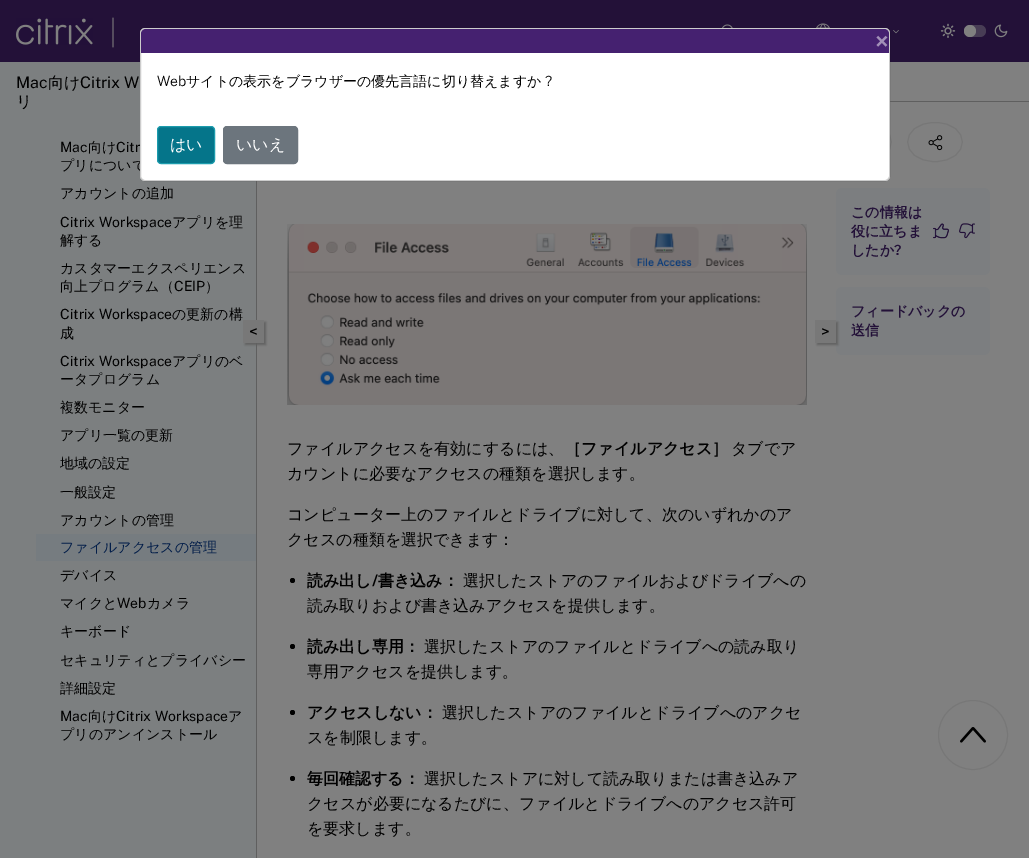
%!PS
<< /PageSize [1029 858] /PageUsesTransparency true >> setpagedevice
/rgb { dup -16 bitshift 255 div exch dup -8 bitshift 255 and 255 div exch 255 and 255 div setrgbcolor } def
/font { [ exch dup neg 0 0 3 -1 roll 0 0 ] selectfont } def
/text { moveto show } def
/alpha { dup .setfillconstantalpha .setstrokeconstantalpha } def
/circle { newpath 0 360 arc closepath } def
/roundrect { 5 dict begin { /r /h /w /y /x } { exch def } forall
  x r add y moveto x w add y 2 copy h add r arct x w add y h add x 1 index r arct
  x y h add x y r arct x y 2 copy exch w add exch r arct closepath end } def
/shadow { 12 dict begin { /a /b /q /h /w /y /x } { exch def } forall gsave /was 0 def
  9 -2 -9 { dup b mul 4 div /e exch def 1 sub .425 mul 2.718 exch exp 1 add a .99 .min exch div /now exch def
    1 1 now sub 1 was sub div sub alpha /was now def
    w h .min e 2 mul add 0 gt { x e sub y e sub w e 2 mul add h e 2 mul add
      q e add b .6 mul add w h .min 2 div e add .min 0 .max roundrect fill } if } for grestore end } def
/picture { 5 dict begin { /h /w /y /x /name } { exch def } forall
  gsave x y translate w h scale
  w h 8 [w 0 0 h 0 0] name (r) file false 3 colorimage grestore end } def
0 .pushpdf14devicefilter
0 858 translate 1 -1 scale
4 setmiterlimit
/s1 { /WenQuanYiZenHei-Medium 14 font 16#000000 rgb } def
/s2 { /PublicSans-Bold 24 font 16#A290B8 rgb } def
/s3 { /PublicSans-Light 14 font 16#000000 rgb } def
/s4 { /WenQuanYiZenHei-Medium 16 font 16#FFFFFF rgb } def
/s5 { /PublicSans-Regular 16 font 16#000000 rgb } def
/s6 { /WenQuanYiZenHei-Medium 16 font 16#000000 rgb } def
/s7 { /PublicSans-Regular 14 font 16#000000 rgb } def
/s8 { /WenQuanYiZenHei-Medium 14 font 16#031E49 rgb } def
/s9 { /WenQuanYiZenHei-Bold 14 font 16#231138 rgb } def
/s10 { /PublicSans-SemiBold 14 font 16#231138 rgb } def
/s11 { /WenQuanYiZenHei-Bold 16 font 16#000000 rgb } def
/s12 { /PublicSans-Bold 16 font 16#000000 rgb } def
16#808080 rgb
0 0 1029 858 rectfill
16#231138 rgb
0 0 1029 62 rectfill
(pic1.raw) 16 18 77 27 picture
16#808080 rgb
113 17.5 moveto 112.5 18 lineto 112.5 47 lineto 113 47.5 lineto 113.5 47 lineto 113.5 18 lineto closepath fill
(pic2.raw) 722 24 11 4 picture
(pic3.raw) 816 23 14 5 picture
(pic4.raw) 893 30 6 4 picture
(pic5.raw) 940 23 16 15 picture
16#483D55 rgb
964 25 22 12 6 roundrect fill
16#808080 rgb
970 31 6 circle fill
(pic6.raw) 994 24 14 14 picture
16#7C7F80 rgb
0 62 256 796 rectfill
s1
(プリについて) 60 170 text
0.07 alpha
864 122.5 moveto 900.5 122.5 900.5 161.5 864 161.5 curveto 827.5 161.5 827.5 122.5 864 122.5 curveto closepath stroke
1 alpha
16#FFFFFF rgb
140 28 750 153 5 roundrect fill
0.2 alpha
16#000000 rgb
140.5 28.5 749 152 4.5 roundrect stroke
1 alpha
16#452170 rgb
146 29 moveto 884 29 lineto 887 29 889 31 889 34 curveto 889 53 lineto 141 53 lineto 141 34 lineto 141 31 143 29 146 29 curveto closepath fill
s2
(×) 875 50 text
s3
(Web) 157 86 text
s1
(サイトの表示をブラウザーの優先言語に切り替えますか) 186 86 text
s3
(?) 545 86 text
16#05758A rgb
157.5 126.5 57 37 3.5 roundrect gsave fill grestore
16#1C9CAD rgb
stroke
s4
(はい) 170 150 text
16#6C757D rgb
223.5 126.5 74 37 3.5 roundrect gsave fill grestore
stroke
s4
(いいえ) 236 150 text
16#777777 rgb
973 735 34.5 circle stroke
(pic7.raw) 960 727 26 16 picture
16#5F5F5F rgb
256 181 1 677 rectfill
s5
(Mac) 16 88 text
s6
(向け) 48 88 text
s5
(Citrix W) 80 88 text
s6
(リ) 16 107 text
s7
(Mac) 60 152 text
s1
(向け) 88 152 text
s7
(Citr) 116 152 text
s1
(アカウントの追加) 60 198 text
s7
(Citrix Workspace) 60 227 text
s1
(アプリを理) 172 227 text
(解する) 60 245 text
(カスタマーエクスペリエンス) 60 273 text
(向上プログラム（) 60 291 text
s7
(CEIP) 174 291 text
s1
(）) 205 291 text
s7
(Citrix Workspace) 60 319 text
s1
(の更新の構) 172 319 text
(成) 60 338 text
s7
(Citrix Workspace) 60 366 text
s1
(アプリのベ) 172 366 text
(ータプログラム) 60 384 text
(複数モニター) 60 412 text
(アプリ一覧の更新) 60 440 text
(地域の設定) 60 468 text
(一般設定) 60 497 text
(アカウントの管理) 60 525 text
16#767C80 rgb
36 534 220 27 rectfill
s8
(ファイルアクセスの管理) 60 552 text
s1
(デバイス) 60 580 text
(マイクと) 60 608 text
s7
(Web) 117 608 text
s1
(カメラ) 147 608 text
(キーボード) 60 636 text
(セキュリティとプライバシー) 60 665 text
(詳細設定) 60 693 text
s7
(Mac) 60 721 text
s1
(向け) 88 721 text
s7
(Citrix Workspace) 116 721 text
s1
(ア) 228 721 text
(プリのアンインストール) 60 739 text
16#5F5F5F rgb
890 101 139 1 rectfill
16#616161 rgb
245 322 21 23 0 1 1 shadow
16#787878 rgb
243 320 21 23 rectfill
s5
(<) 249 337 text
16#7C7E80 rgb
836 287 154 68 6 roundrect fill
16#616161 rgb
817 322 21 23 0 1 1 shadow
16#787878 rgb
815 320 21 23 rectfill
s5
(>) 821 337 text
0.07 alpha
935 122.5 moveto 971.5 122.5 971.5 161.5 935 161.5 curveto 898.5 161.5 898.5 122.5 935 122.5 curveto closepath stroke
1 alpha
(pic8.raw) 928 135 15 16 picture
16#7C7E80 rgb
836 188 154 87 6 roundrect fill
s9
(この情報は) 851 217 text
(役に立ちま) 851 236 text
(したか) 851 255 text
s10
(?) 894 255 text
(pic9.raw) 933 223 16 16 picture
(pic10.raw) 959 223 16 16 picture
s9
(フィードバックの) 851 316 text
(送信) 851 335 text
(pic11.raw) 287 224 520 181 picture
s6
(ファイルアクセスを有効にするには、) 287 454 text
s11
(［ファイルアクセス］) 565 454 text
s6
(タブでア) 731 454 text
(カウントに必要なアクセスの種類を選択します。) 287 479 text
(コンピューター上のファイルとドライブに対して、次のいずれかのア) 287 520 text
(クセスの種類を選択できます：) 287 545 text
292.5 580.5 2.5 circle fill
s11
(読み出し) 307 586 text
s12
(/) 372 586 text
s11
(書き込み：) 378 586 text
s6
(選択したストアのファイルおよびドライブへの) 463 586 text
(読み取りおよび書き込みアクセスを提供します。) 307 611 text
292.5 646.5 2.5 circle fill
s11
(読み出し専用：) 307 652 text
s6
(選択したストアのファイルとドライブへの読み取り) 424 652 text
(専用アクセスを提供します。) 307 677 text
292.5 712.5 2.5 circle fill
s11
(アクセスしない：) 307 718 text
s6
(選択したストアのファイルとドライブへのアクセ) 442 718 text
(スを制限します。) 307 743 text
292.5 778.5 2.5 circle fill
s11
(毎回確認する：) 307 784 text
s6
(選択したストアに対して読み取りまたは書き込みア) 424 784 text
(クセスが必要になるたびに、ファイルとドライブへのアクセス許可) 307 809 text
(を要求します。) 307 834 text
.poppdf14devicefilter showpage
